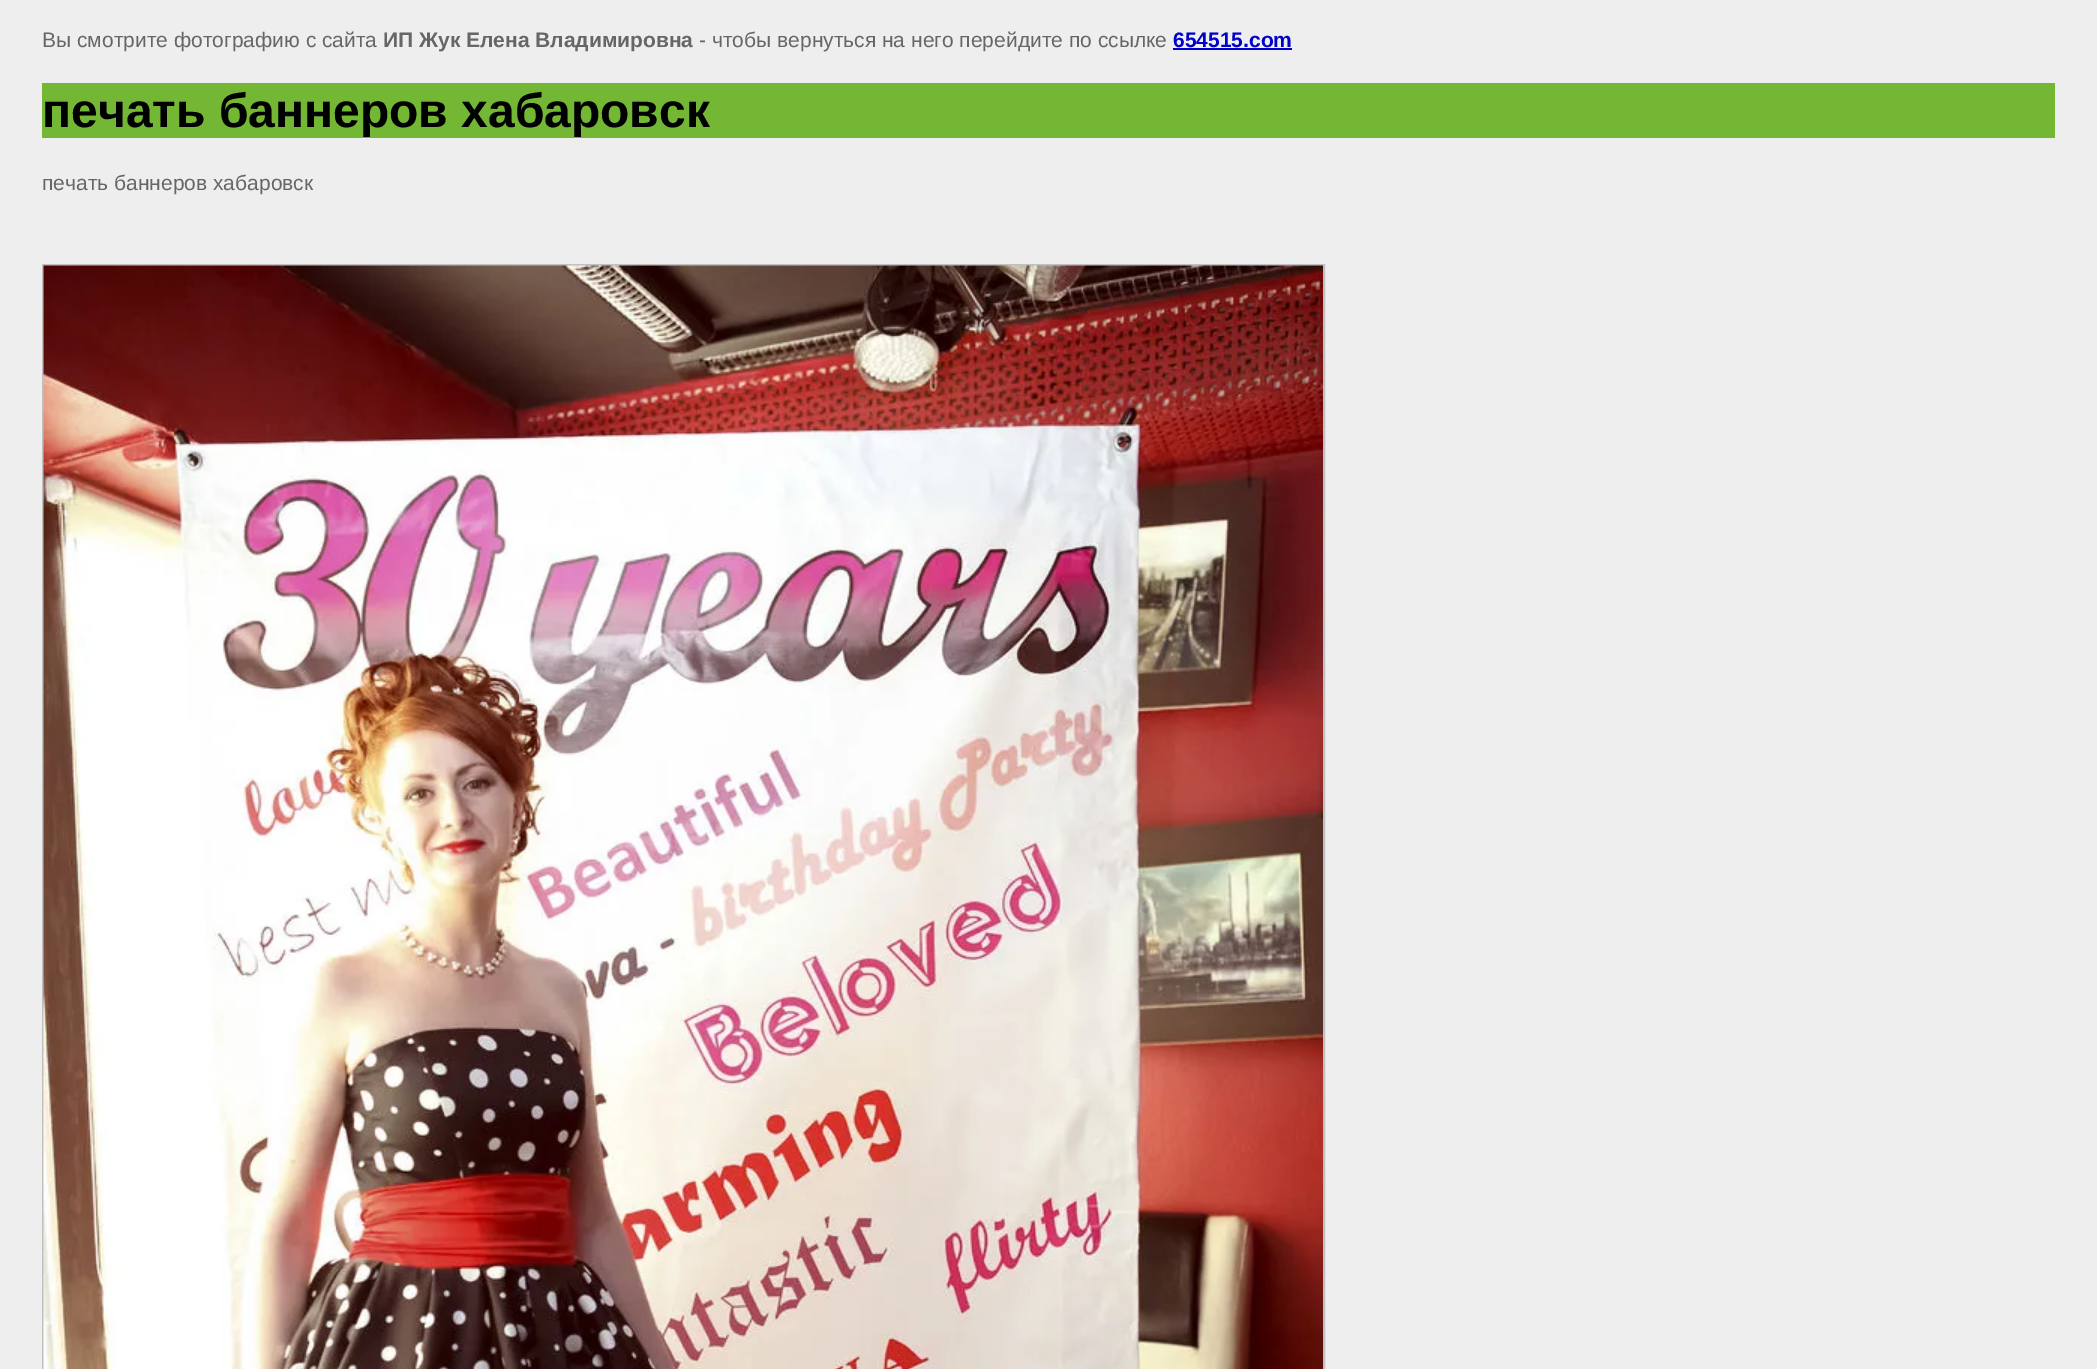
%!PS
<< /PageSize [2097 1369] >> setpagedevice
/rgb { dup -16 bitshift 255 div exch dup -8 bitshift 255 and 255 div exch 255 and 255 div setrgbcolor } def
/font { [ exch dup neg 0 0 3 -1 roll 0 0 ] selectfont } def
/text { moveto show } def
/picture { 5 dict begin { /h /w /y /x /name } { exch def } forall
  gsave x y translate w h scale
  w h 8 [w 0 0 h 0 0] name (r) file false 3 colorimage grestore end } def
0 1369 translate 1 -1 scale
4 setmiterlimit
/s1 { /LiberationSans-Regular 21 font 16#666666 rgb } def
/s2 { /LiberationSans-Bold 21 font 16#666666 rgb } def
/s3 { /LiberationSans-Bold 21 font 16#0000CC rgb } def
/s4 { /LiberationSans-Bold 48 font 16#000000 rgb } def
16#EEEEEE rgb
0 0 2097 1369 rectfill
s1
(Вы смотрите фотографию с сайта) 42 47 text
s2
(ИП Жук Елена Владимировна) 383 47 text
s1
(- чтобы вернуться на него перейдите по ссылке) 699 47 text
s3
(654515.com) 1173 47 text
1173 48 119 2 rectfill
16#74B734 rgb
42 83 2013 55 rectfill
s4
(печать баннеров хабаровск) 42 127 text
s1
(печать баннеров хабаровск) 42 190 text
16#C0C0C0 rgb
2 setlinewidth
43 265 1281 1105 rectstroke
(pic1.raw) 43 265 1280 1104 picture
showpage
